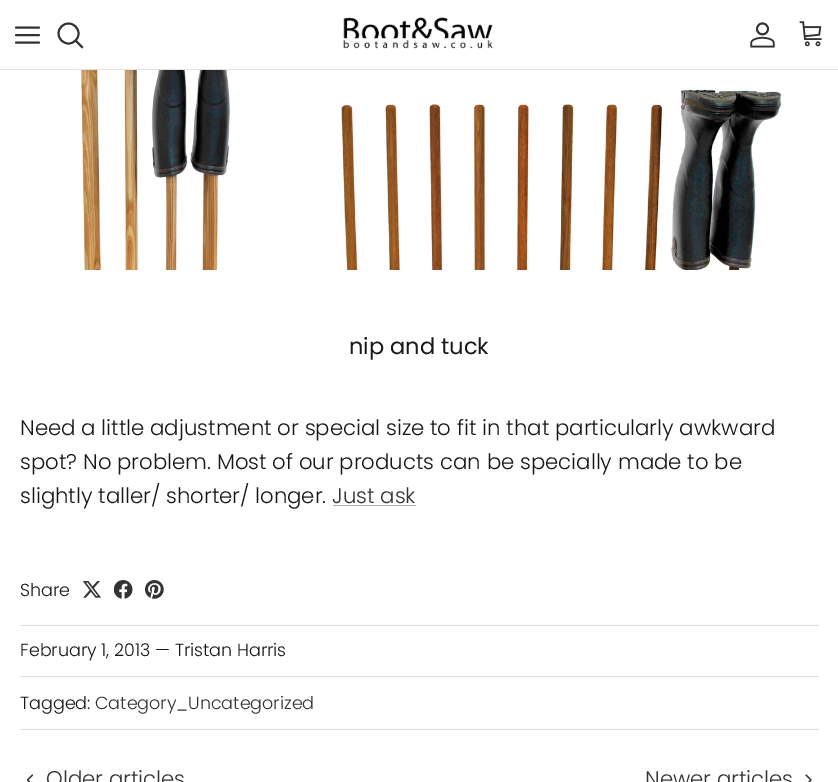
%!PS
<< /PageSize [838 782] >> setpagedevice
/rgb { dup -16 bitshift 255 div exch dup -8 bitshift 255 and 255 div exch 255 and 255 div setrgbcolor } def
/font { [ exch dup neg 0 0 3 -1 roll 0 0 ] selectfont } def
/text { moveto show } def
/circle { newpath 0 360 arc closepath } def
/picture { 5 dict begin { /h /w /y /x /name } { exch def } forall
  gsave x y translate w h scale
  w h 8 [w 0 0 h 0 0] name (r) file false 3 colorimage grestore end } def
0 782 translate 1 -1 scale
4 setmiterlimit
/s1 { /Poppins-Regular 22.5 font 16#171717 rgb } def
/s2 { /Poppins-Light 21.25 font 16#171717 rgb } def
/s3 { /Poppins-Light 21.25 font 16#333333 rgb } def
/s4 { /Poppins-Light 17.5 font 16#171717 rgb } def
/s5 { /Poppins-Light 17.5 font 16#333333 rgb } def
16#FFFFFF rgb
0 0 838 782 rectfill
16#E2E2E2 rgb
0 69 838 1 rectfill
16#333333 rgb
1.9 setlinewidth
1 setlinecap
1 setlinejoin
16 35 moveto 39 35 lineto 16 27.5 moveto 39 27.5 lineto 16 42.5 moveto 39 42.5 lineto stroke
0 setlinecap
0 setlinejoin
68.5 33.5 10 circle stroke
2 setlinecap
76 41 moveto 82 47 lineto stroke
(pic1.raw) 343 17 150 32 picture
(pic2.raw) 750 22 25 26 picture
(pic3.raw) 799 21 23 26 picture
(pic4.raw) 81 70 701 200 picture
s1
(nip and tuck) 349 354 text
s2
(Need a little adjustment or special size to fit in that particularly awkward) 20 435 text
(spot? No problem. Most of our products can be specially made to be) 20 469 text
(slightly taller/ shorter/ longer.) 20 503 text
s3
(Just ask) 332 503 text
16#ADADAD rgb
333 505 83 1 rectfill
s4
(Share) 20 596 text
(pic5.raw) 83 581 18 17 picture
(pic6.raw) 114 580 19 19 picture
(pic7.raw) 145 580 19 19 picture
16#DFDFDF rgb
20 625 799 1 rectfill
20 676 799 1 rectfill
s4
(February 1, 2013 — Tristan Harris) 20 656 text
16#DFDFDF rgb
20 729 799 1 rectfill
s4
(Tagged:) 20 709 text
s5
(Category_Uncategorized) 95 709 text
s3
(Older articles) 46 786 text
1.2 setlinewidth
1 setlinecap
1 setlinejoin
32.5 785 moveto 27.5 780 lineto 32.5 775 lineto stroke
(Newer articles) 645 786 text
806 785 moveto 811 780 lineto 806 775 lineto stroke
showpage
